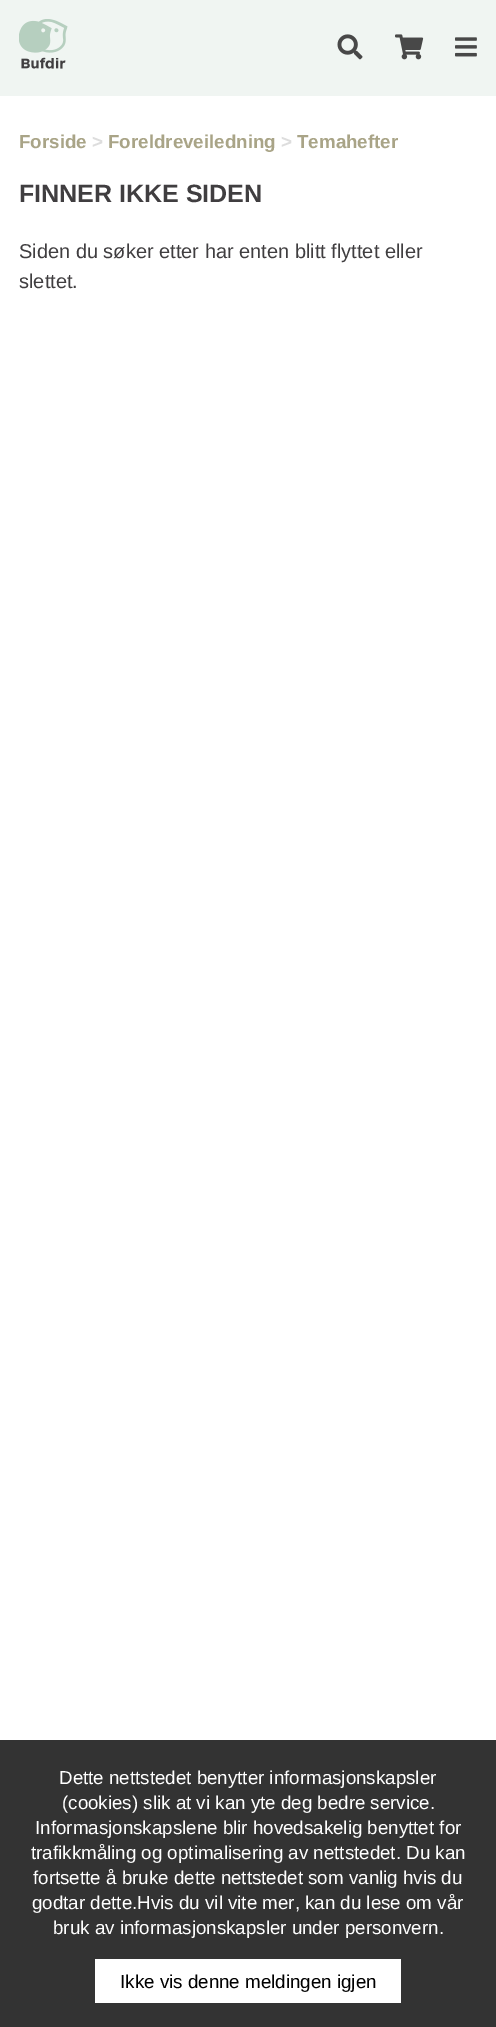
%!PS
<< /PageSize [496 2027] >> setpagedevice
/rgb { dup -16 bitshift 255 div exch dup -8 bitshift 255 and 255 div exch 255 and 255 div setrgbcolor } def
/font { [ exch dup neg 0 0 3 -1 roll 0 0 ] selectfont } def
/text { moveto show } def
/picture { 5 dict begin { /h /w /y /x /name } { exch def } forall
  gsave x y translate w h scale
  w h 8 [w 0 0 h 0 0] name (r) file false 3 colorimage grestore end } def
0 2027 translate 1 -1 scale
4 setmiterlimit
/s1 { /LiberationSans-Bold 18.75 font 16#A9A487 rgb } def
/s2 { /LiberationSans-Bold 18.75 font 16#DDDDDD rgb } def
/s3 { /LiberationSans-Bold 25 font 16#403E40 rgb } def
/s4 { /LiberationSans-Regular 20 font 16#403E40 rgb } def
/s5 { /LiberationSans-Regular 18.75 font 16#FFFFFF rgb } def
/s6 { /LiberationSans-Regular 18.75 font 16#000000 rgb } def
16#FFFFFF rgb
0 0 496 2027 rectfill
16#F0F5F2 rgb
0 0 496 96 rectfill
(pic1.raw) 19 19 49 50 picture
(pic2.raw) 337 34 26 26 picture
(pic3.raw) 395 34 29 26 picture
(pic4.raw) 455 37 22 20 picture
s1
(Forside) 19 148 text
s2
(>) 92 148 text
s1
(Foreldreveiledning) 108 148 text
s2
(>) 281 148 text
s1
(Temahefter) 297 148 text
s3
(FINNER IKKE SIDEN) 19 202 text
s4
(Siden du søker etter har enten blitt flyttet eller) 19 258 text
(slettet.) 19 288 text
16#333333 rgb
0 1740 496 287 rectfill
s5
(Dette nettstedet benytter informasjonskapsler) 59 1784 text
(\(cookies\) slik at vi kan yte deg bedre service.) 62 1809 text
(Informasjonskapslene blir hovedsakelig benyttet for) 35 1834 text
(trafikkmåling og optimalisering av nettstedet. Du kan) 31 1859 text
(fortsette å bruke dette nettstedet som vanlig hvis du) 33 1884 text
(godtar dette.Hvis du vil vite mer, kan du lese om vår) 32 1909 text
(bruk av informasjonskapsler under personvern.) 53 1934 text
95 1959 306 44 rectfill
s6
(Ikke vis denne meldingen igjen) 120 1988 text
showpage
